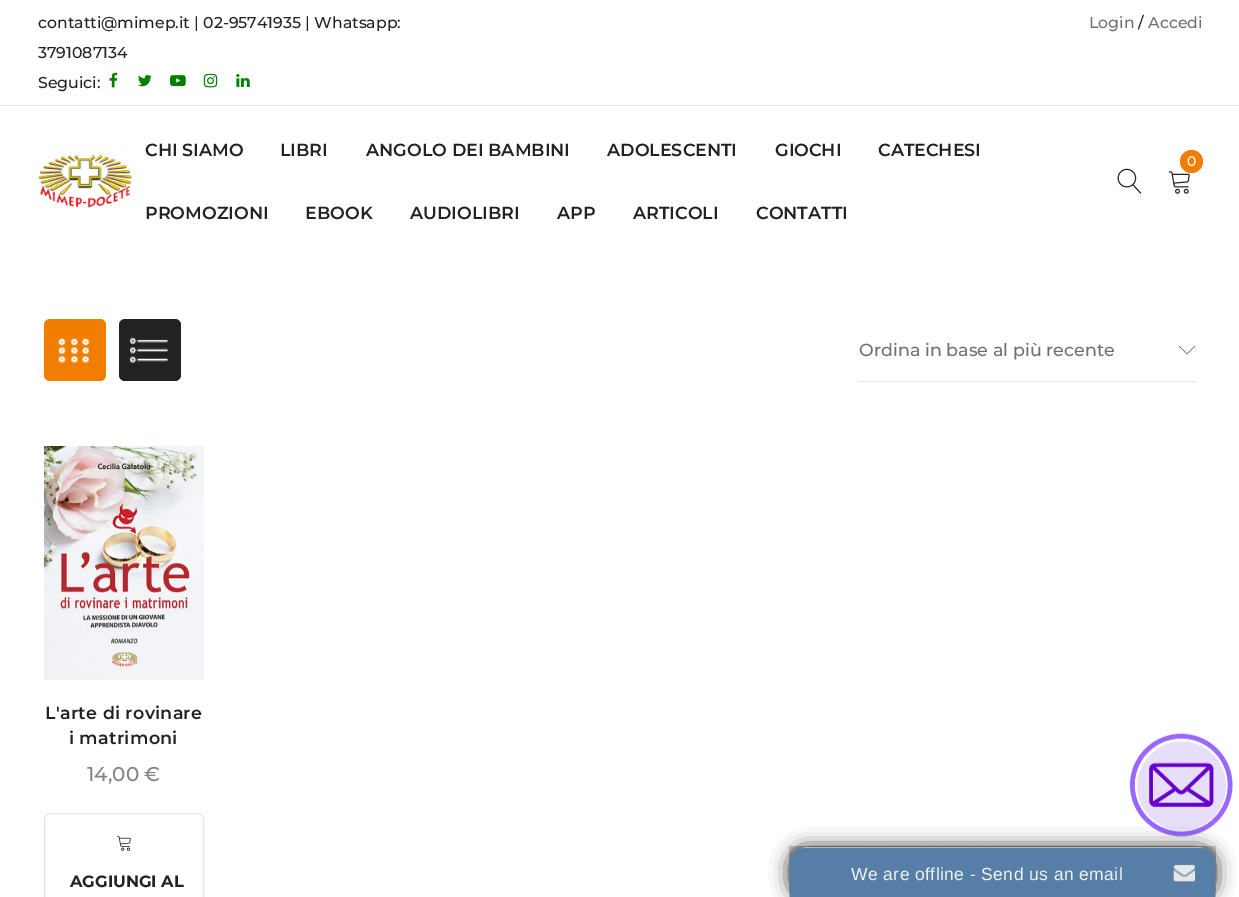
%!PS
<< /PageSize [1239 897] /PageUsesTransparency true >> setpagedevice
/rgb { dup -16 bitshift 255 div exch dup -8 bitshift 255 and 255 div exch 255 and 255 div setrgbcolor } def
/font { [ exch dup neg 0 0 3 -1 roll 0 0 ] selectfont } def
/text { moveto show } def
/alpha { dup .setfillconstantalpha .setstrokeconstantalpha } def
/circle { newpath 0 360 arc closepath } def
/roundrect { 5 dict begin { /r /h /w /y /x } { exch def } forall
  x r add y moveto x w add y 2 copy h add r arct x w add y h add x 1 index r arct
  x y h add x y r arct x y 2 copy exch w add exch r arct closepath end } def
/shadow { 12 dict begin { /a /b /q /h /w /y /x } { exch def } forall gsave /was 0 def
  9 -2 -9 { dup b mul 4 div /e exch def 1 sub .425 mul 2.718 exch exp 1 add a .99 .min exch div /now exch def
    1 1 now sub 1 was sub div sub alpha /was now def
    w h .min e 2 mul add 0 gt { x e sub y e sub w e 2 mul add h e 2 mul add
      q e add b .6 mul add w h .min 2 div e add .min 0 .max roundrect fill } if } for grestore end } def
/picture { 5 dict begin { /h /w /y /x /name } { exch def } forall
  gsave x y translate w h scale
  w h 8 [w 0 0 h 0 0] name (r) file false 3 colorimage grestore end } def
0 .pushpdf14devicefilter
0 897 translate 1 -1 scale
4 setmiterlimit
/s1 { /Montserrat-Medium 15.75 font 16#222222 rgb } def
/s2 { /Montserrat-Medium 15.75 font 16#707070 rgb } def
/s3 { /Montserrat-SemiBold 17.5 font 16#222222 rgb } def
/s4 { /Montserrat-Medium 14 font 16#FFFFFF rgb } def
/s5 { /Montserrat-Medium 17.5 font 16#707070 rgb } def
/s6 { /Montserrat-Medium 20 font 16#848484 rgb } def
/s7 { /Montserrat-Bold 16.25 font 16#222222 rgb } def
16#FFFFFF rgb
0 0 1239 897 rectfill
16#E5E5E5 rgb
0 105 1239 1 rectfill
s1
(contatti@mimep.it | 02-95741935 | Whatsapp:) 38 28 text
(3791087134) 38 58 text
(Seguici:) 38 88 text
(pic1.raw) 109 72 9 16 picture
(pic2.raw) 138 75 14 12 picture
(pic3.raw) 170 75 16 12 picture
(pic4.raw) 203 73 15 15 picture
(pic5.raw) 236 74 14 13 picture
s2
(Login) 1089 28 text
s1
(/) 1138 28 text
s2
(Accedi) 1148 28 text
(pic6.raw) 38 154 94 54 picture
s3
(CHI SIAMO) 145 156 text
(LIBRI) 280 156 text
(ANGOLO DEI BAMBINI) 366 156 text
(ADOLESCENTI) 607 156 text
(GIOCHI) 775 156 text
(CATECHESI) 878 156 text
(PROMOZIONI) 145 219 text
(EBOOK) 305 219 text
(AUDIOLIBRI) 410 219 text
(APP) 557 219 text
(ARTICOLI) 633 219 text
(CONTATTI) 756 219 text
(pic7.raw) 1168 171 22 23 picture
16#F27E01 rgb
1191.5 161.5 11.5 circle fill
s4
(0) 1187 166 text
(pic8.raw) 1117 168 25 26 picture
16#F27E01 rgb
44 319 62 62 6 roundrect fill
(pic9.raw) 58 338 31 25 picture
16#222222 rgb
119 319 62 62 6 roundrect fill
(pic10.raw) 129 337 39 26 picture
16#E5E5E5 rgb
859 381 337 1 rectfill
s5
(Ordina in base al più recente) 859 356 text
(pic11.raw) 1178 345 18 10 picture
(pic12.raw) 44 446 160 234 picture
/Montserrat-SemiBold 17.5 font
16#222222 rgb
45 719 moveto 0.3 0 (L'arte di rovinare) ashow
69 744 moveto 0.3 0 (i matrimoni) ashow
s6
(14,00 €) 87 781 text
16#E5E5E5 rgb
44.5 813.5 159 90 5.5 roundrect stroke
(pic13.raw) 117 836 14 15 picture
s7
(AGGIUNGI AL) 70 887 text
(pic14.raw) 1130 733 103 104 picture
16#111111 rgb
790 848 425 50 16 9.5 1 shadow
(pic15.raw) 789 846 427 51 picture
16#567EA6 rgb
804 848 moveto 1201 848 lineto 1208.5 848 1215 854.5 1215 862 curveto 1215 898 lineto 790 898 lineto 790 862 lineto 790 854.5 796.5 848 804 848 curveto closepath fill
/LiberationSans-Regular 17.5 font
16#F1F1F1 rgb
851 880 moveto 0.4 0 (We are offline - Send us an email) ashow
(pic16.raw) 1173 864 22 18 picture
.poppdf14devicefilter showpage
